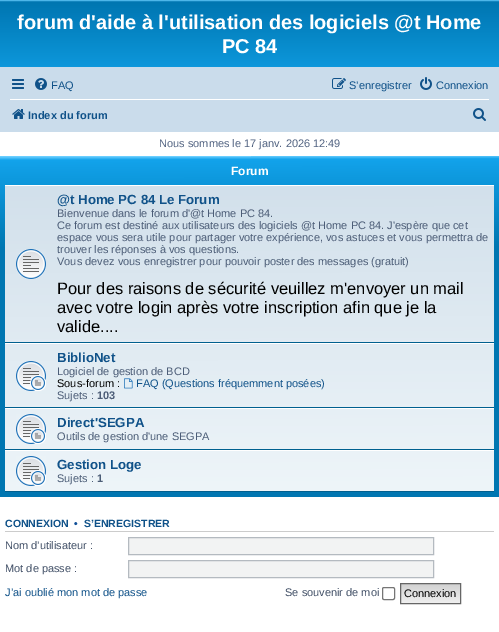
%!PS
<< /PageSize [499 632] >> setpagedevice
/rgb { dup -16 bitshift 255 div exch dup -8 bitshift 255 and 255 div exch 255 and 255 div setrgbcolor } def
/font { [ exch dup neg 0 0 3 -1 roll 0 0 ] selectfont } def
/text { moveto show } def
/roundrect { 5 dict begin { /r /h /w /y /x } { exch def } forall
  x r add y moveto x w add y 2 copy h add r arct x w add y h add x 1 index r arct
  x y h add x y r arct x y 2 copy exch w add exch r arct closepath end } def
/picture { 5 dict begin { /h /w /y /x /name } { exch def } forall
  gsave x y translate w h scale
  w h 8 [w 0 0 h 0 0] name (r) file false 3 colorimage grestore end } def
0 632 translate 1 -1 scale
4 setmiterlimit
/s1 { /LiberationSans-Bold 20 font 16#FFFFFF rgb } def
/s2 { /LiberationSans-Regular 11 font 16#105289 rgb } def
/s3 { /LiberationSans-Bold 11 font 16#105289 rgb } def
/s4 { /LiberationSans-Regular 11 font 16#536482 rgb } def
/s5 { /LiberationSans-Bold 12 font 16#FFFFFF rgb } def
/s6 { /LiberationSans-Bold 13.25 font 16#105289 rgb } def
/s7 { /LiberationSans-Regular 11 font 16#4C5D77 rgb } def
/s8 { /LiberationSans-Regular 16.5 font 16#000000 rgb } def
/s9 { /LiberationSans-Regular 11 font 16#000000 rgb } def
/s10 { /LiberationSans-Bold 11 font 16#4C5D77 rgb } def
/s11 { /LiberationSans-Bold 10.5 font 16#105289 rgb } def
/s12 { /LiberationSans-Bold 10.5 font 16#115098 rgb } def
/s13 { /LiberationSans-Regular 11 font 16#425067 rgb } def
16#FFFFFF rgb
0 0 499 632 rectfill
gsave 0 0 moveto 499 0 lineto 499 67 lineto 0 67 lineto closepath clip newpath
<< /ShadingType 2 /ColorSpace /DeviceRGB /Coords [250 0 250 92] /Extend [true true] /Function << /FunctionType 3 /Domain [0 1] /Functions [<< /FunctionType 2 /Domain [0 1] /C0 [0.416 0.808 1] /C1 [0 0.463 0.694] /N 1 >> << /FunctionType 2 /Domain [0 1] /C0 [0 0.463 0.694] /C1 [0.071 0.639 0.922] /N 1 >>] /Bounds [0.02] /Encode [0 1 0 1] >> >> shfill grestore
s1
(forum d'aide à l'utilisation des logiciels @t Home) 17 29 text
(PC 84) 222 53 text
16#CADCEB rgb
0 67 499 65 rectfill
(pic1.raw) 12 79 12 10 picture
(pic2.raw) 35 78 12 12 picture
s2
(FAQ) 51 89 text
(pic3.raw) 332 78 14 11 picture
(S’enregistrer) 349 89 text
(pic4.raw) 420 77 12 13 picture
(Connexion) 436 89 text
16#FFFFFF rgb
10 99 479 1 rectfill
(pic5.raw) 12 109 13 10 picture
s3
(Index du forum) 28 119 text
(pic6.raw) 473 108 13 13 picture
s4
(Nous sommes le 17 janv. 2026 12:49) 159 147 text
gsave 0 156 moveto 499 156 lineto 499 497 lineto 0 497 lineto closepath clip newpath
<< /ShadingType 2 /ColorSpace /DeviceRGB /Coords [249 156 250 497] /Extend [true true] /Function << /FunctionType 3 /Domain [0 1] /Functions [<< /FunctionType 2 /Domain [0 1] /C0 [0.416 0.808 1] /C1 [0.071 0.639 0.922] /N 1 >> << /FunctionType 2 /Domain [0 1] /C0 [0.071 0.639 0.922] /C1 [0 0.463 0.694] /N 1 >> << /FunctionType 2 /Domain [0 1] /C0 [0 0.463 0.694] /C1 [0 0.463 0.694] /N 1 >>] /Bounds [0.01 0.27] /Encode [0 1 0 1 0 1] >> >> shfill grestore
s5
(Forum) 231 175 text
gsave 5 186 moveto 494 186 lineto 494 491 lineto 5 491 lineto closepath clip newpath
<< /ShadingType 2 /ColorSpace /DeviceRGB /Coords [249 185 250 492] /Extend [true true] /Function << /FunctionType 2 /Domain [0 1] /C0 [0.824 0.878 0.922] /C1 [0.933 0.961 0.976] /N 1 >> >> shfill grestore
5 185 489 1 rectfill
16#00608F rgb
5 342 489 1 rectfill
(pic7.raw) 16 249 30 30 picture
s6
(@t Home PC 84 Le Forum) 57 204 text
s7
(Bienvenue dans le forum d'@t Home PC 84.) 57 217 text
(Ce forum est destiné aux utilisateurs des logiciels @t Home PC 84. J'espère que cet) 57 229 text
(espace vous sera utile pour partager votre expérience, vos astuces et vous permettra de) 57 241 text
(trouver les réponses à vos questions.) 57 253 text
(Vous devez vous enregistrer pour pouvoir poster des messages \(gratuit\)) 57 265 text
s8
(Pour des raisons de sécurité veuillez m'envoyer un mail) 57 294 text
(avec votre login après votre inscription afin que je la) 57 313 text
(valide....) 57 332 text
16#FFFFFF rgb
5 343 489 1 rectfill
16#00608F rgb
5 407 489 1 rectfill
(pic8.raw) 16 361 30 30 picture
s6
(BiblioNet) 57 362 text
s7
(Logiciel de gestion de BCD) 57 375 text
s9
(Sous-forum :) 57 387 text
(pic9.raw) 124 378 9 11 picture
s2
(FAQ \(Questions fréquemment posées\)) 136 387 text
s7
(Sujets :) 57 399 text
s10
(103) 97 399 text
16#FFFFFF rgb
5 408 489 1 rectfill
16#00608F rgb
5 449 489 1 rectfill
(pic10.raw) 16 414 30 30 picture
s6
(Direct'SEGPA) 57 427 text
s7
(Outils de gestion d'une SEGPA) 57 440 text
16#FFFFFF rgb
5 450 489 1 rectfill
16#00608F rgb
5 491 489 1 rectfill
(pic11.raw) 16 456 30 30 picture
s6
(Gestion Loge) 57 469 text
s7
(Sujets :) 57 482 text
s10
(1) 97 482 text
16#CCCCCC rgb
5 531 489 1 rectfill
s11
(CONNEXION) 5 527 text
s12
(•) 74 527 text
s11
(S’ENREGISTRER) 84 527 text
s13
(Nom d’utilisateur :) 5 549 text
16#F2F3F3 rgb
128.5 537.5 moveto 433.5 537.5 lineto 433.5 554.5 lineto 128.5 554.5 lineto closepath gsave fill grestore
16#B4BAC0 rgb
stroke
s13
(Mot de passe :) 5 572 text
16#F2F3F3 rgb
128.5 560.5 moveto 433.5 560.5 lineto 433.5 577.5 lineto 128.5 577.5 lineto closepath gsave fill grestore
16#B4BAC0 rgb
stroke
s2
(J’ai oublié mon mot de passe) 5 596 text
s13
(Se souvenir de moi) 285 596 text
16#767676 rgb
382.5 587.5 12 12 1.5 roundrect stroke
gsave 401 584 moveto 460 584 lineto 460 603 lineto 401 603 lineto closepath clip newpath
<< /ShadingType 2 /ColorSpace /DeviceRGB /Coords [431 584 431 603] /Extend [true true] /Function << /FunctionType 2 /Domain [0 1] /C0 [0.824 0.824 0.824] /C1 [0.937 0.937 0.937] /N 1 >> >> shfill grestore
16#666666 rgb
400.5 583.5 60 20 rectstroke
s9
(Connexion) 404 597 text
showpage
